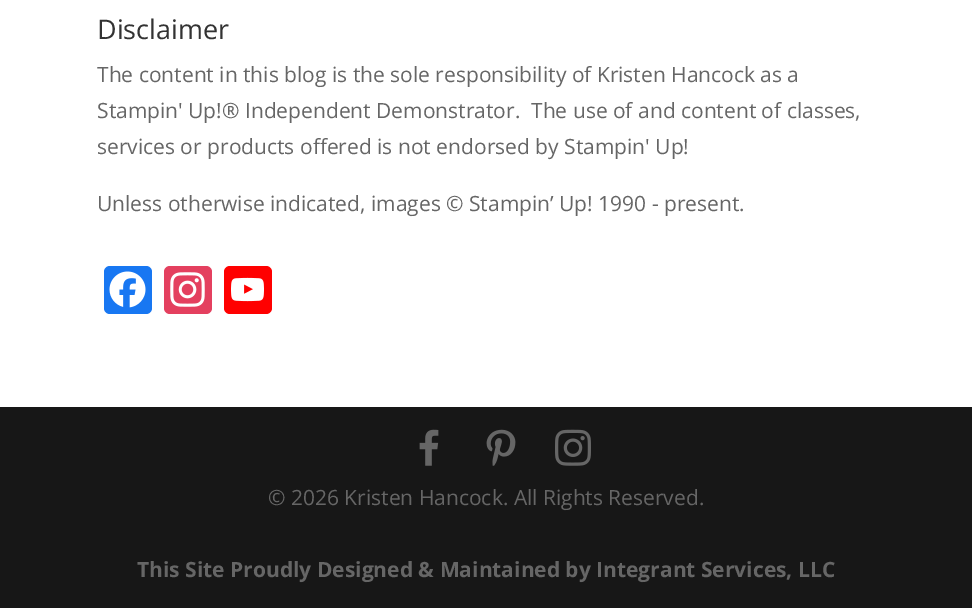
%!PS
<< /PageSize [972 608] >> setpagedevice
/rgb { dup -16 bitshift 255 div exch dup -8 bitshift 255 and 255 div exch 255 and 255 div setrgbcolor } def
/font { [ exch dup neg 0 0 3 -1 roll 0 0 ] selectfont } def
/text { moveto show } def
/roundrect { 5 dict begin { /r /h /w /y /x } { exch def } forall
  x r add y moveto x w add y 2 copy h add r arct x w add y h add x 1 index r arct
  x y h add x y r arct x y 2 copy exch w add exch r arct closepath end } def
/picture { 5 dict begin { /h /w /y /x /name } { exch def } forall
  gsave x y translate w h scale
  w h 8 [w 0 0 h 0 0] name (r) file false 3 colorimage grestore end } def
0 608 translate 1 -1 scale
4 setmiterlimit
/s1 { /OpenSans-Regular 27 font 16#333333 rgb } def
/s2 { /OpenSans-Regular 21 font 16#666666 rgb } def
/s3 { /OpenSans-Bold 21 font 16#666666 rgb } def
16#FFFFFF rgb
0 0 972 608 rectfill
s1
(Disclaimer) 97 39 text
s2
(The content in this blog is the sole responsibility of Kristen Hancock as a) 97 82 text
(Stampin' Up!® Independent Demonstrator.  The use of and content of classes,) 97 118 text
(services or products offered is not endorsed by Stampin' Up!) 97 154 text
(Unless otherwise indicated, images © Stampin’ Up! 1990 - present.) 97 211 text
16#1877F2 rgb
104 266 48 48 6 roundrect fill
(pic1.raw) 109 271 37 37 picture
16#E4405F rgb
164 266 48 48 6 roundrect fill
(pic2.raw) 170 272 35 35 picture
16#FF0000 rgb
224 266 48 48 6 roundrect fill
(pic3.raw) 231 277 33 25 picture
16#171717 rgb
0 407 972 201 rectfill
(pic4.raw) 419 429 20 37 picture
(pic5.raw) 486 429 30 37 picture
(pic6.raw) 555 429 36 37 picture
s2
(© 2026 Kristen Hancock. All Rights Reserved.) 268 505 text
s3
(This Site Proudly Designed & Maintained by Integrant Services, LLC) 137 577 text
showpage
